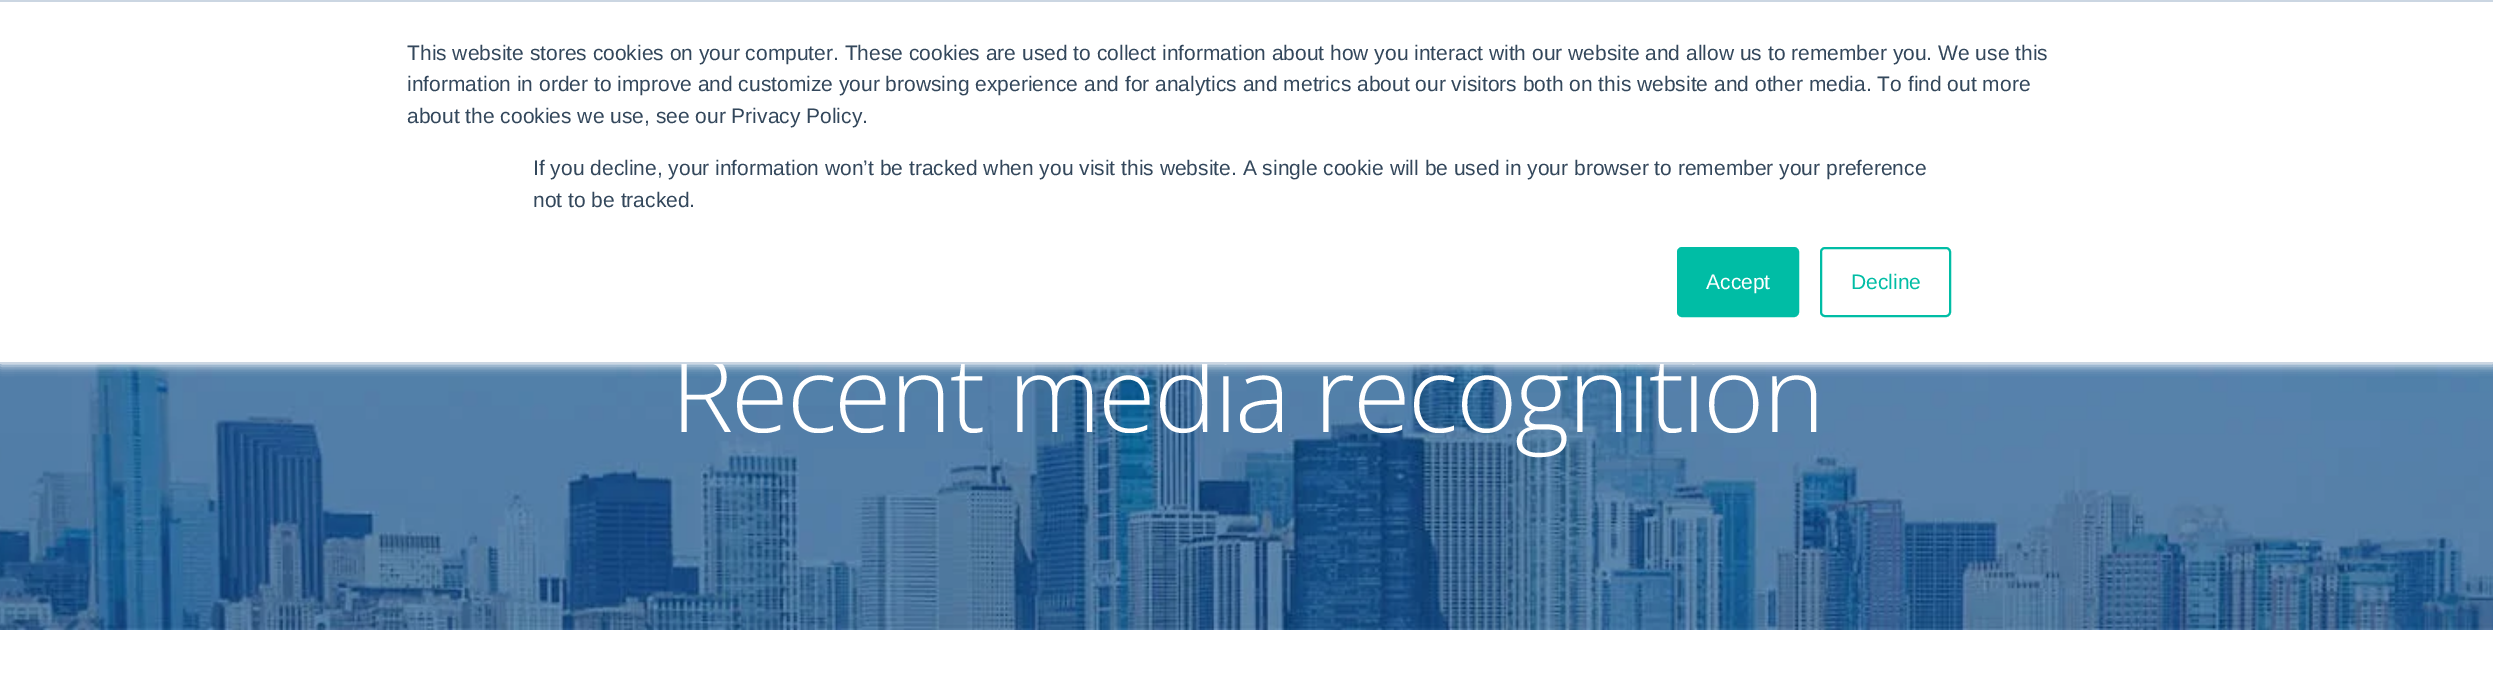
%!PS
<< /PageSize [2493 680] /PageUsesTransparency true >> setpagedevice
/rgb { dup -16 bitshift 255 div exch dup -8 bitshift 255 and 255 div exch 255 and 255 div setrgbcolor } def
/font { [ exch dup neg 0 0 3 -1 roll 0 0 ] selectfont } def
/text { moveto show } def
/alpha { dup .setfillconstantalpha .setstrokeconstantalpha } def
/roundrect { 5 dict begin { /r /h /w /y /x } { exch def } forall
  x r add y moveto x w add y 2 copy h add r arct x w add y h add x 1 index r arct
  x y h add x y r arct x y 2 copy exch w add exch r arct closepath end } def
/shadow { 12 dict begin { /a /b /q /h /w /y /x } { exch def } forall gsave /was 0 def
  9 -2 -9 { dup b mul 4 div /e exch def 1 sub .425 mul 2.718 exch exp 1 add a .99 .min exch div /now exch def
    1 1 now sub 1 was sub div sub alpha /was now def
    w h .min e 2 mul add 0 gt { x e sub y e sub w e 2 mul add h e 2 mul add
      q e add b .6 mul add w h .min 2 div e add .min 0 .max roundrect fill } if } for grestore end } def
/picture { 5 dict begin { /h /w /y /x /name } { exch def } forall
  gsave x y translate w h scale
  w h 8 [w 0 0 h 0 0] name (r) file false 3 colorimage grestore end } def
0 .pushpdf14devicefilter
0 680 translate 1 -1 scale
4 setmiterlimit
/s1 { /LiberationSans-Regular 21 font 16#33475B rgb } def
/s2 { /LiberationSans-Regular 21 font 16#FFFFFF rgb } def
/s3 { /LiberationSans-Regular 21 font 16#00BDA5 rgb } def
16#FFFFFF rgb
0 0 2493 680 rectfill
(pic1.raw) 0 364 2493 266 picture
16#EAF0F6 rgb
0 2 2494 364 0 4.5 1 shadow
16#FFFFFF rgb
0 2 2493 360 rectfill
16#CBD6E2 rgb
0 0 2493 2 rectfill
/OpenSans-Light 105 font
16#FFFFFF rgb
671 432 moveto -2.2 0 (Recent media recognition) ashow
16#CBD6E2 rgb
0 362 2493 2 rectfill
s1
(This website stores cookies on your computer. These cookies are used to collect information about how you interact with our website and allow us to remember you. We use this) 407 60 text
(information in order to improve and customize your browsing experience and for analytics and metrics about our visitors both on this website and other media. To find out more) 407 91 text
(about the cookies we use, see our Privacy Policy.) 407 123 text
(If you decline, your information won’t be tracked when you visit this website. A single cookie will be used in your browser to remember your preference) 533 175 text
(not to be tracked.) 533 207 text
16#00BDA5 rgb
1678 248 120 68 4 roundrect gsave fill grestore
2 setlinewidth
stroke
s2
(Accept) 1706 289 text
16#00BDA5 rgb
1821 248 129 68 4 roundrect stroke
(Decline) 1851 289 text
.poppdf14devicefilter showpage
